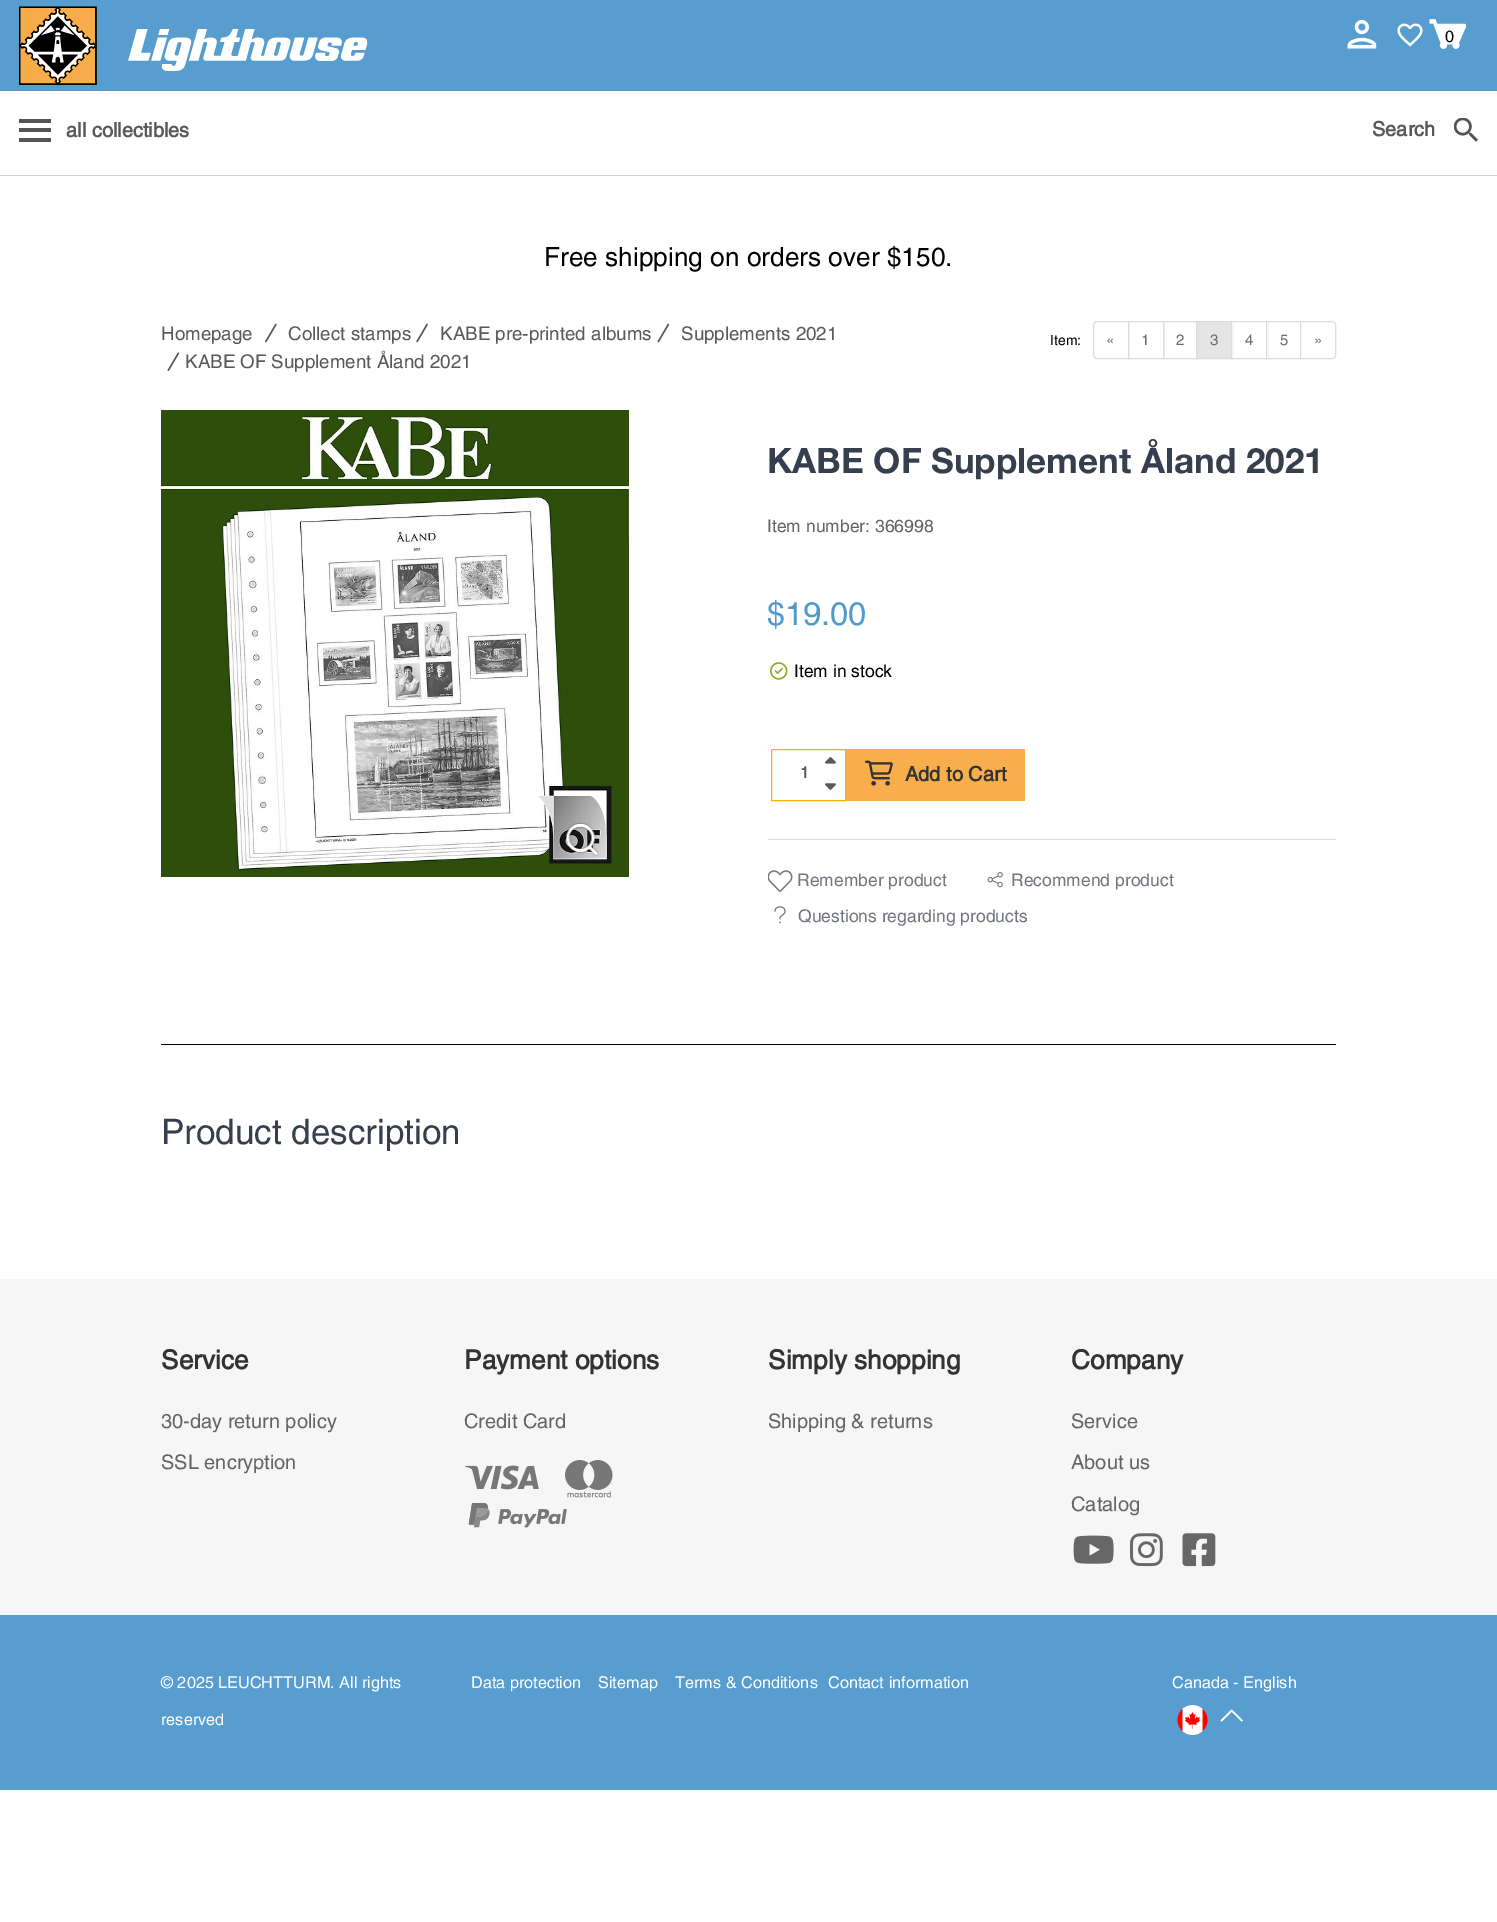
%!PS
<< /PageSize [1497 1922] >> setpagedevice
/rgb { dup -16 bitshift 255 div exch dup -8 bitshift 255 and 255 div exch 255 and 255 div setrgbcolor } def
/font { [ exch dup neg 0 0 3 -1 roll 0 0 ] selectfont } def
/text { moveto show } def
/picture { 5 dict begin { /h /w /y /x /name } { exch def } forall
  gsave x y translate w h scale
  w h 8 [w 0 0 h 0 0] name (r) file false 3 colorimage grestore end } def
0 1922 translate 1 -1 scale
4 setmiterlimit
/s1 { /Helvetica-Regular 16.25 font 16#000000 rgb } def
/s2 { /Helvetica-Bold 20 font 16#595959 rgb } def
/s3 { /Helvetica-Regular 26.25 font 16#000000 rgb } def
/s4 { /Helvetica-Regular 18.75 font 16#595959 rgb } def
/s5 { /Helvetica-Regular 14 font 16#000000 rgb } def
/s6 { /Helvetica-Regular 15 font 16#686B76 rgb } def
/s7 { /HelveticaNeue-Bold 35 font 16#363F4D rgb } def
/s8 { /Helvetica-Regular 17.5 font 16#646464 rgb } def
/s9 { /Helvetica-Regular 32.5 font 16#519ACD rgb } def
/s10 { /Helvetica-Regular 17.5 font 16#000000 rgb } def
/s11 { /Helvetica-Bold 16.25 font 16#595959 rgb } def
/s12 { /Helvetica-Bold 20 font 16#333333 rgb } def
/s13 { /Helvetica-Regular 17.5 font 16#737682 rgb } def
/s14 { /Helvetica-Regular 35 font 16#363F4D rgb } def
/s15 { /Helvetica-Bold 26.25 font 16#333333 rgb } def
/s16 { /Helvetica-Regular 20 font 16#646464 rgb } def
/s17 { /Helvetica-Regular 16.25 font 16#FFFFFF rgb } def
16#FFFFFF rgb
0 0 1497 1922 rectfill
16#579DCF rgb
0 0 1497 91 rectfill
(pic1.raw) 19 6 349 79 picture
(pic2.raw) 1347 19 30 30 picture
(pic3.raw) 1397 23 26 24 picture
(pic4.raw) 1429 19 37 30 picture
s1
(0) 1445 42 text
16#545454 rgb
19 119 32 4 rectfill
19 128 32 4 rectfill
19 138 32 4 rectfill
s2
(all collectibles) 66 137 text
(Search) 1372 136 text
(pic5.raw) 1454 118 24 24 picture
16#D1D4D7 rgb
0 175 1497 1 rectfill
s3
(Free shipping on orders over $150.) 544 266 text
s4
(Homepage) 161 340 text
(pic6.raw) 265 323 12 20 picture
(Collect stamps) 288 340 text
(pic7.raw) 416 323 12 20 picture
(KABE pre-printed albums) 440 340 text
(pic8.raw) 657 323 13 20 picture
(Supplements 2021) 681 340 text
(pic9.raw) 167 352 13 19 picture
(KABE OF Supplement Åland 2021) 185 368 text
s5
(Item:) 1050 345 text
16#DDDDDD rgb
1097 321.5 moveto 1128.5 321.5 lineto 1128.5 358.5 lineto 1097 358.5 lineto 1095 358.5 1093.5 357 1093.5 355 curveto 1093.5 325 lineto 1093.5 323 1095 321.5 1097 321.5 curveto closepath stroke
s6
(«) 1106 345 text
16#DDDDDD rgb
1128.5 321.5 35 37 rectstroke
s6
(1) 1141 345 text
16#DDDDDD rgb
1163.5 321.5 34 37 rectstroke
s6
(2) 1176 345 text
16#E5E5E5 rgb
1197 322 34 36 rectfill
16#DDDDDD rgb
1196.5 321.5 36 37 rectstroke
s6
(3) 1210 345 text
16#FFFFFF rgb
1232 322 1 36 rectfill
16#DDDDDD rgb
1231.5 321.5 36 37 rectstroke
s6
(4) 1245 345 text
16#FFFFFF rgb
1267 322 1 36 rectfill
16#DDDDDD rgb
1266.5 321.5 34 37 rectstroke
s6
(5) 1280 345 text
16#FFFFFF rgb
1300.5 321.5 moveto 1332 321.5 lineto 1334 321.5 1335.5 323 1335.5 325 curveto 1335.5 355 lineto 1335.5 357 1334 358.5 1332 358.5 curveto 1300.5 358.5 lineto closepath gsave fill grestore
16#DDDDDD rgb
stroke
s6
(») 1314 345 text
(pic10.raw) 161 410 468 467 picture
(pic11.raw) 565 822 34 35 picture
s7
(KABE OF Supplement Åland 2021) 767 473 text
s8
(Item number: 366998) 767 532 text
s9
($19.00) 767 625 text
(pic12.raw) 770 662 18 18 picture
s10
(Item in stock) 794 677 text
16#DBDBDB rgb
768 839 568 1 rectfill
16#FFAF00 rgb
771.5 749.5 74 51 rectstroke
(pic13.raw) 825 757 11 7 picture
s11
(1) 800 778 text
(pic14.raw) 825 783 11 7 picture
16#F8AE4C rgb
846 749 179 52 rectfill
(pic15.raw) 865 760 28 26 picture
s12
(Add to Cart) 905 781 text
(pic16.raw) 768 870 25 22 picture
s13
(Remember product) 797 886 text
(pic17.raw) 987 872 16 16 picture
(Recommend product) 1011 886 text
(pic18.raw) 774 906 12 18 picture
(Questions regarding products) 798 922 text
16#000000 rgb
161 1044 1175 1 rectfill
s14
(Product description) 161 1144 text
16#F6F6F6 rgb
0 1279 1497 336 rectfill
s15
(Service) 161 1369 text
s16
(30-day return policy) 161 1428 text
(SSL encryption) 161 1469 text
s15
(Payment options) 464 1369 text
s16
(Credit Card) 464 1428 text
(pic19.raw) 465 1465 74 25 picture
(pic20.raw) 565 1460 48 38 picture
(pic21.raw) 468 1503 99 25 picture
s15
(Simply shopping) 768 1369 text
s16
(Shipping & returns) 768 1428 text
s15
(Company) 1071 1369 text
s16
(Service) 1071 1428 text
(About us) 1071 1469 text
(Catalog) 1071 1511 text
(pic22.raw) 1073 1535 41 29 picture
(pic23.raw) 1130 1533 33 34 picture
(pic24.raw) 1182 1533 34 34 picture
16#579DCF rgb
0 1615 1497 175 rectfill
s17
(© 2025 LEUCHTTURM. All rights) 161 1688 text
(reserved) 161 1725 text
(Data protection) 471 1688 text
(Sitemap) 598 1688 text
(Terms & Conditions) 675 1688 text
(Contact information) 828 1688 text
(Canada - English) 1172 1688 text
(pic25.raw) 1177 1705 31 30 picture
(pic26.raw) 1220 1709 23 13 picture
showpage
